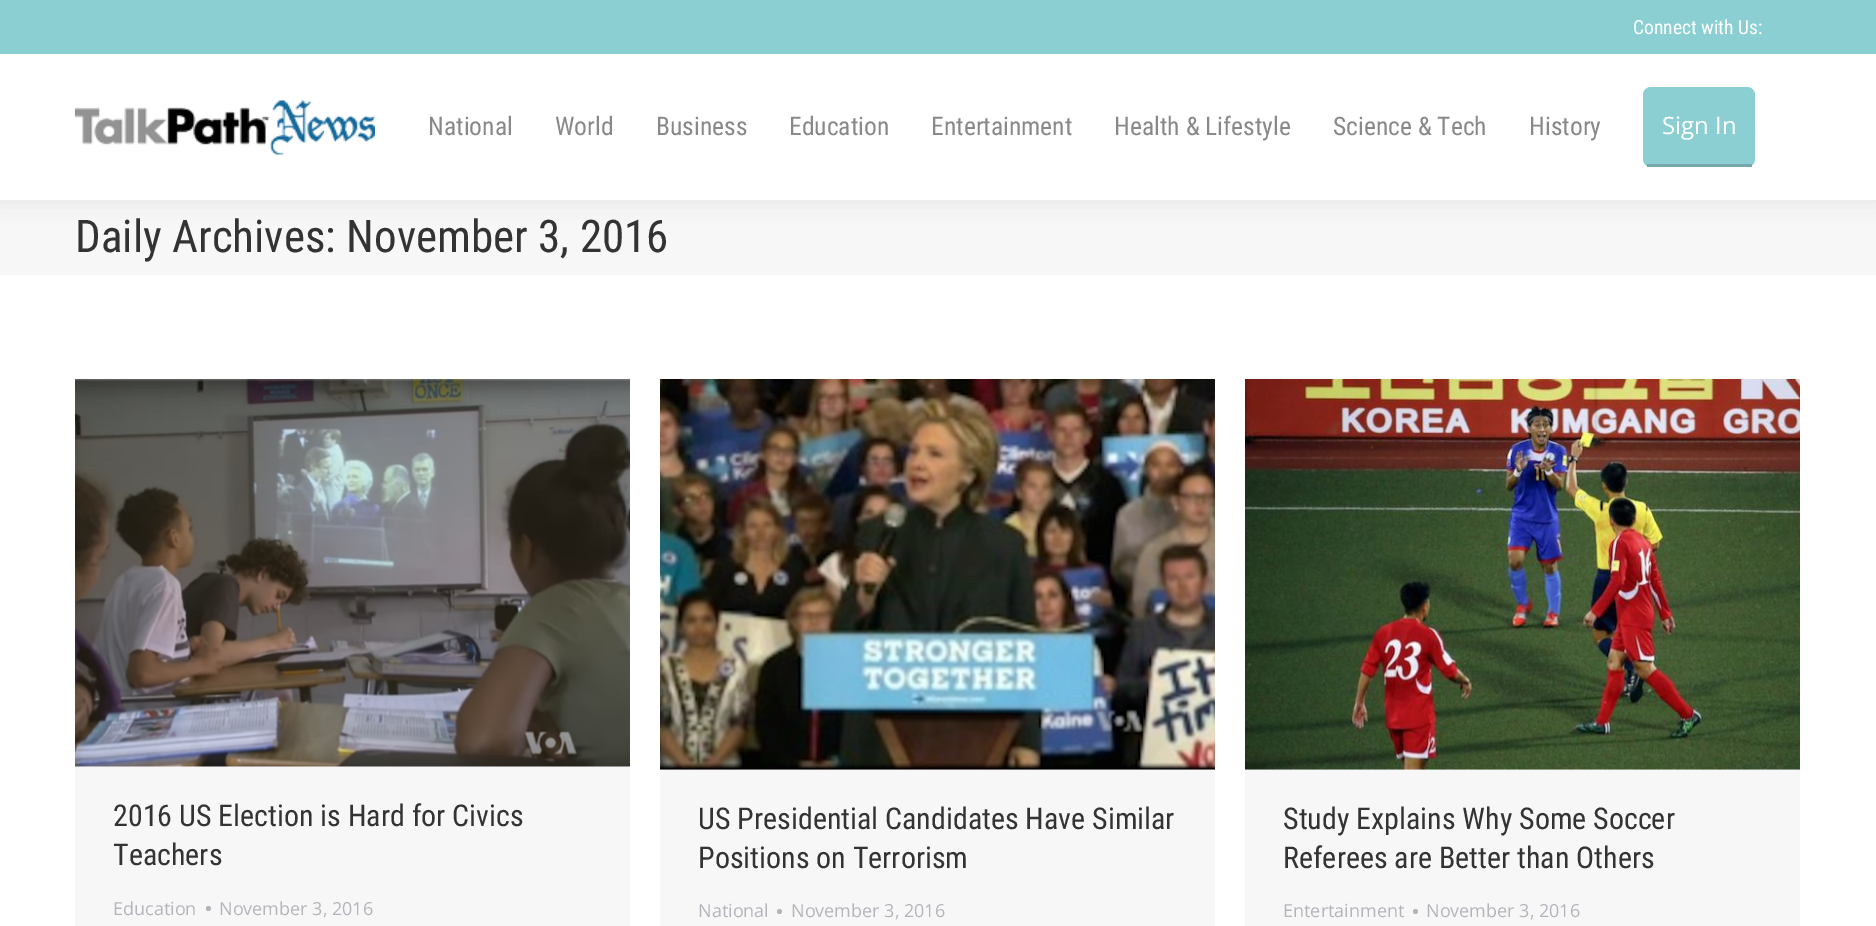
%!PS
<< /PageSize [1876 926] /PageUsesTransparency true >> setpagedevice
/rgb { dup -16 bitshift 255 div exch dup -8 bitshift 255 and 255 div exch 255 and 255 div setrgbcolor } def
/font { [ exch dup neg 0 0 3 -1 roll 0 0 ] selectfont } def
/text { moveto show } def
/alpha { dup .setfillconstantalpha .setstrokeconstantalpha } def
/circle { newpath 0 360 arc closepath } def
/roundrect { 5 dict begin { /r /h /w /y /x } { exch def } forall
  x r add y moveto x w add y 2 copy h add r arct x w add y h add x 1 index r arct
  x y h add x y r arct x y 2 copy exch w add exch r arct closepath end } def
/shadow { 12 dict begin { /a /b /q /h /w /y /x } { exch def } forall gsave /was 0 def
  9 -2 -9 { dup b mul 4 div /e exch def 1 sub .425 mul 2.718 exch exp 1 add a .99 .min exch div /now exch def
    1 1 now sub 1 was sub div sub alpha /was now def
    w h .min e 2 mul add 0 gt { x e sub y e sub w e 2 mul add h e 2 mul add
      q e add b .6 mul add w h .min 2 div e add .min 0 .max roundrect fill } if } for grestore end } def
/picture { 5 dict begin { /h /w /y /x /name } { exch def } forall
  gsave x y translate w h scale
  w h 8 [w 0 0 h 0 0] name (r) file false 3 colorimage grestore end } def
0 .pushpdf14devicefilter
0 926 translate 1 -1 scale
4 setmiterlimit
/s1 { /RobotoCondensed-Regular 19.5 font 16#FFFFFF rgb } def
/s2 { /RobotoCondensed-Regular 25.5 font 16#888888 rgb } def
/s3 { /OpenSans-Regular 24 font 16#FFFFFF rgb } def
/s4 { /RobotoCondensed-Regular 45 font 16#333333 rgb } def
/s5 { /RobotoCondensed-Regular 30 font 16#333333 rgb } def
/s6 { /OpenSans-Regular 18 font 16#B4B5BB rgb } def
16#FFFFFF rgb
0 0 1876 926 rectfill
16#F7F7F7 rgb
0 200 1876 75 rectfill
16#000000 rgb
-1 -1 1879 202 0 11 0.07 shadow
16#FFFFFF rgb
0 54 1876 146 rectfill
16#8CCFD2 rgb
0 0 1876 54 rectfill
s1
(Connect with Us:) 1633 34 text
(pic1.raw) 75 100 300 55 picture
s2
(National) 428 135 text
(World) 555 135 text
(Business) 656 135 text
(Education) 789 135 text
(Entertainment) 931 135 text
(Health & Lifestyle) 1114 135 text
(Science & Tech) 1333 135 text
(History) 1529 135 text
16#8CCFD2 rgb
1643 87 112 80 8 roundrect fill
16#76A8AB rgb
1647 164 105 3 rectfill
s3
(Sign In) 1662 134 text
s4
(Daily Archives: November 3, 2016) 75 252 text
16#F7F7F7 rgb
75 380 555 546 rectfill
(pic2.raw) 75 379 555 388 picture
s5
(2016 US Election is Hard for Civics) 113 826 text
(Teachers) 113 865 text
s6
(Education) 113 915 text
208.5 908.5 2.5 circle fill
(November 3, 2016) 219 915 text
16#F7F7F7 rgb
660 769 555 157 rectfill
(pic3.raw) 660 379 555 391 picture
s5
(US Presidential Candidates Have Similar) 698 829 text
(Positions on Terrorism) 698 868 text
s6
(National) 698 917 text
779.5 911.5 2.5 circle fill
(November 3, 2016) 791 917 text
16#F7F7F7 rgb
1245 769 555 157 rectfill
(pic4.raw) 1245 379 555 391 picture
s5
(Study Explains Why Some Soccer) 1283 829 text
(Referees are Better than Others) 1283 868 text
s6
(Entertainment) 1283 917 text
1415.5 911.5 2.5 circle fill
(November 3, 2016) 1426 917 text
.poppdf14devicefilter showpage
